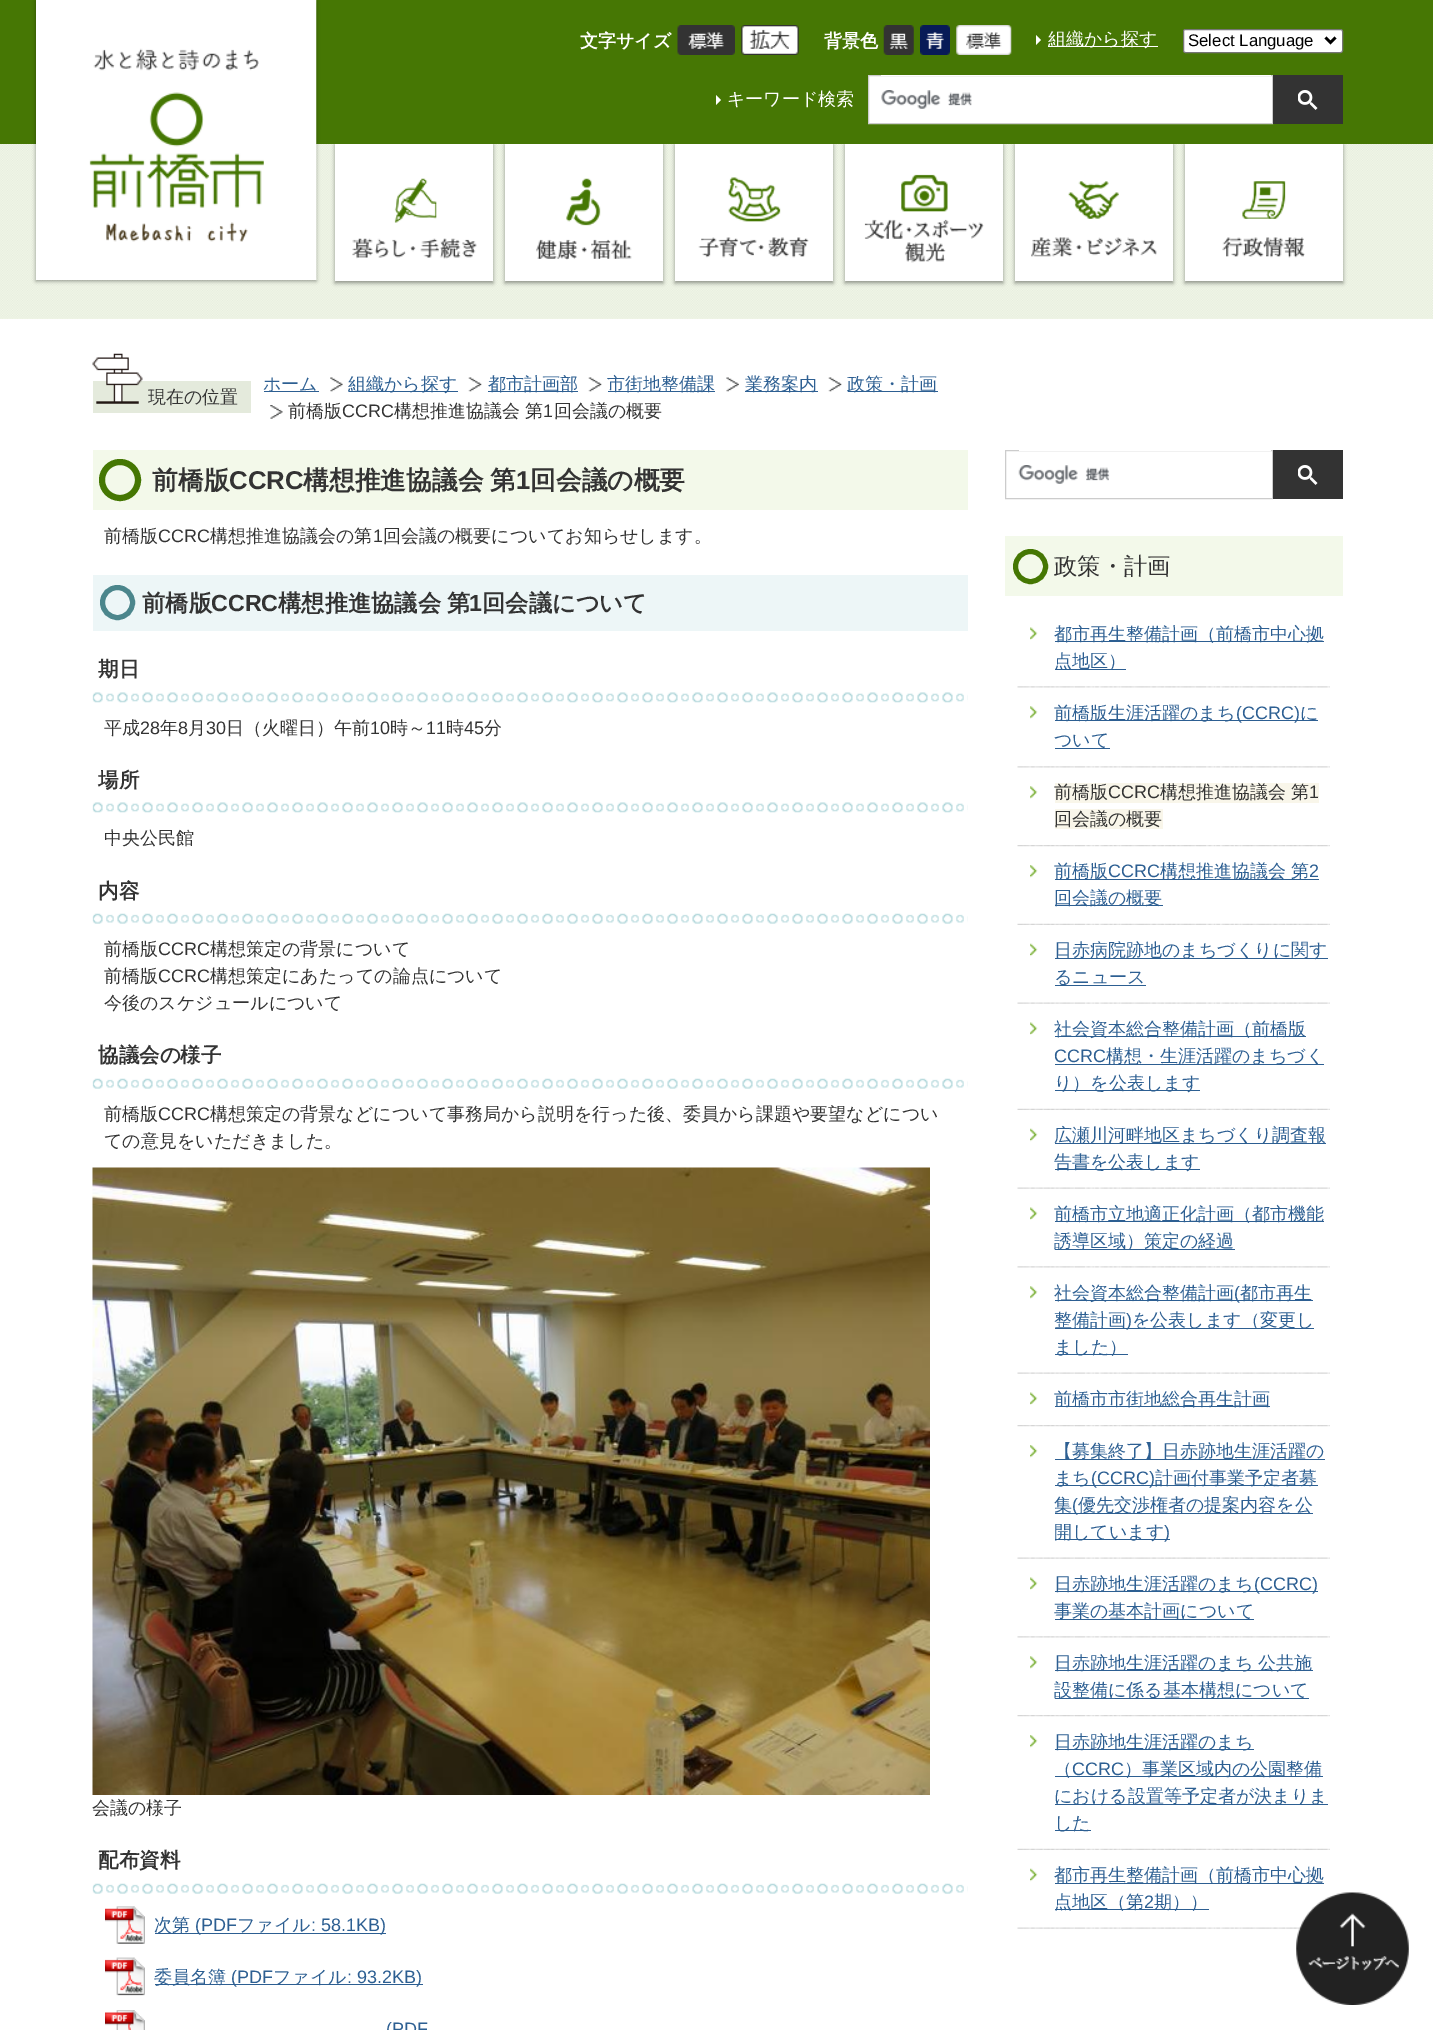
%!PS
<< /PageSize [1433 2030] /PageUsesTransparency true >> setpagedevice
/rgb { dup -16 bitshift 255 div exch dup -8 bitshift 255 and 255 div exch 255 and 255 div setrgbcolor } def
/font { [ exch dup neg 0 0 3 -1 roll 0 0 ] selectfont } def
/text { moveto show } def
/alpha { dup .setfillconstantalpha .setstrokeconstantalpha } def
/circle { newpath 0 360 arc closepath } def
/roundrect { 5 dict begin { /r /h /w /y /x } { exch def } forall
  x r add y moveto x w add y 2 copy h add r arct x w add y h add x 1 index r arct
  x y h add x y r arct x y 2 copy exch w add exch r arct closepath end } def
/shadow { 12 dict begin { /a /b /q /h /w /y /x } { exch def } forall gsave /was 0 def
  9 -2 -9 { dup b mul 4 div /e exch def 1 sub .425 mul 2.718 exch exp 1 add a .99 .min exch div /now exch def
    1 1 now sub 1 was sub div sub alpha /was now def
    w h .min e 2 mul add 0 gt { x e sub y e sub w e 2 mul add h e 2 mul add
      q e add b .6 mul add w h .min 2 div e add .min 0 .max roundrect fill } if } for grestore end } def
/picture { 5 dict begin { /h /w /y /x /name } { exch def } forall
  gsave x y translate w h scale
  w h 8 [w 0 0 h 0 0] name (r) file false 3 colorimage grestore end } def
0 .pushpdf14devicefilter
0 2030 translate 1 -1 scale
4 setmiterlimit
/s1 { /WenQuanYiZenHei-Bold 18 font 16#FFFFFF rgb } def
/s2 { /WenQuanYiZenHei-Medium 18 font 16#FFFFFF rgb } def
/s3 { /LiberationSans-Regular 16.75 font 16#000000 rgb } def
/s4 { /WenQuanYiZenHei-Medium 18 font 16#333333 rgb } def
/s5 { /WenQuanYiZenHei-Medium 18 font 16#2D5F92 rgb } def
/s6 { /LiberationSans-Regular 18 font 16#333333 rgb } def
/s7 { /WenQuanYiZenHei-Bold 25.75 font 16#333333 rgb } def
/s8 { /LiberationSans-Bold 25.75 font 16#333333 rgb } def
/s9 { /WenQuanYiZenHei-Bold 23.25 font 16#333333 rgb } def
/s10 { /LiberationSans-Bold 23.25 font 16#333333 rgb } def
/s11 { /WenQuanYiZenHei-Bold 20.5 font 16#333333 rgb } def
/s12 { /LiberationSans-Regular 18 font 16#2D5F92 rgb } def
/s13 { /WenQuanYiZenHei-Medium 23.25 font 16#333333 rgb } def
16#FFFFFF rgb
0 0 1433 2030 rectfill
(pic9.raw) 0 144 1433 175 picture
16#000000 rgb
335 145 158 138 0 2 0.4 shadow
505 145 158 138 0 2 0.4 shadow
675 145 158 138 0 2 0.4 shadow
845 145 158 138 0 2 0.4 shadow
1015 145 158 138 0 2 0.4 shadow
1185 145 158 138 0 2 0.4 shadow
16#467704 rgb
0 0 1433 144 rectfill
16#000000 rgb
36 1 280 280 0 2 0.4 shadow
16#FFFFFF rgb
36 0 53 280 rectfill
(pic1.raw) 89 0 228 280 picture
s1
(文字サイズ) 580 47 text
(pic2.raw) 677 25 58 30 picture
(pic3.raw) 741 25 58 30 picture
(背景色) 824 47 text
(pic4.raw) 883 25 31 30 picture
(pic5.raw) 920 25 30 30 picture
(pic6.raw) 956 25 56 30 picture
1036 45 moveto 1036 35 lineto 1041 40 lineto closepath fill
1048 46 110 1 rectfill
s2
(組織から探す) 1048 45 text
1183.5 29.5 159 23 2 roundrect gsave fill grestore
16#767676 rgb
stroke
16#000000 rgb
2.5 setlinewidth
1325.5 37.5 moveto 1330.5 42.5 lineto 1335.5 37.5 lineto stroke
s3
(Select Language) 1188 46 text
16#FFFFFF rgb
716 105 moveto 716 95 lineto 721 100 lineto closepath fill
s2
(キーワード検索) 727 105 text
868.5 75.5 moveto 1272.5 75.5 lineto 1272.5 123.5 lineto 868.5 123.5 lineto closepath gsave fill grestore
16#CCCCCC rgb
1 setlinewidth
stroke
16#FFFFFF rgb
881 75 390 1 rectfill
(pic7.raw) 881 90 91 19 picture
16#333333 rgb
1273 75 70 49 rectfill
(pic8.raw) 1298 90 20 20 picture
16#FFFFFF rgb
335 144 158 137 rectfill
(pic10.raw) 352 178 125 81 picture
505 144 158 137 rectfill
(pic11.raw) 536 178 96 82 picture
675 144 158 137 rectfill
(pic12.raw) 698 177 111 81 picture
845 144 158 137 rectfill
(pic13.raw) 864 174 120 89 picture
1015 144 158 137 rectfill
(pic14.raw) 1031 181 126 76 picture
1185 144 158 137 rectfill
(pic15.raw) 1222 181 83 77 picture
16#E4EADC rgb
93 381 158 32 rectfill
(pic16.raw) 92 353 51 51 picture
s4
(現在の位置) 148 403 text
16#2D5F92 rgb
264 391 55 1 rectfill
(ホーム) 263 390 text
(pic17.raw) 330 377 13 15 picture
349 391 109 1 rectfill
(組織から探す) 348 390 text
(pic18.raw) 468 377 14 15 picture
488 391 90 1 rectfill
(都市計画部) 488 390 text
(pic18.raw) 588 377 14 15 picture
608 391 107 1 rectfill
(市街地整備課) 607 390 text
(pic19.raw) 726 377 13 15 picture
745 391 73 1 rectfill
(業務案内) 745 390 text
(pic20.raw) 828 377 14 15 picture
848 391 90 1 rectfill
(政策・計画) 847 390 text
(pic21.raw) 270 405 13 14 picture
s4
(前橋版) 288 417 text
s6
(CCRC) 342 417 text
s4
(構想推進協議会 第) 394 417 text
s6
(1) 543 417 text
s4
(回会議の概要) 554 417 text
16#F3F9EA rgb
93 450 875 60 rectfill
16#457703 rgb
6 setlinewidth
120 480 18 circle stroke
s7
(前橋版) 152 489 text
s8
(CCRC) 229 489 text
/WenQuanYiZenHei-Bold 25.75 font
303 489 moveto -1 0 32 (構想推進協議会 第) widthshow
s8
(1) 516 489 text
s7
(回会議の概要) 530 489 text
s4
(前橋版) 104 542 text
s6
(CCRC) 158 542 text
s4
(構想推進協議会の第) 210 542 text
s6
(1) 373 542 text
s4
(回会議の概要についてお知らせします。) 383 542 text
16#EDF6F7 rgb
93 575 875 56 rectfill
16#4B868C rgb
5 setlinewidth
117.5 602.5 15 circle stroke
s9
(前橋版) 142 611 text
s10
(CCRC) 211 611 text
/WenQuanYiZenHei-Bold 23.25 font
278 611 moveto -1 0 32 (構想推進協議会 第) widthshow
s10
(1) 469 611 text
s9
(回会議について) 482 611 text
(pic22.raw) 92 692 876 11 picture
s11
(期日) 98 676 text
s4
(平成) 104 734 text
s6
(28) 140 734 text
s4
(年) 160 734 text
s6
(8) 178 734 text
s4
(月) 188 734 text
s6
(30) 206 734 text
s4
(日（火曜日）午前) 226 734 text
s6
(10) 370 734 text
s4
(時～) 390 734 text
s6
(11) 426 734 text
s4
(時) 446 734 text
s6
(45) 464 734 text
s4
(分) 484 734 text
(pic23.raw) 92 802 876 11 picture
s11
(場所) 98 787 text
s4
(中央公民館) 104 844 text
(pic24.raw) 92 913 876 11 picture
s11
(内容) 98 898 text
s4
(前橋版) 104 955 text
s6
(CCRC) 158 955 text
s4
(構想策定の背景について) 210 955 text
(前橋版) 104 982 text
s6
(CCRC) 158 982 text
s4
(構想策定にあたっての論点について) 210 982 text
(今後のスケジュールについて) 104 1009 text
(pic25.raw) 92 1078 876 11 picture
s11
(協議会の様子) 98 1062 text
s4
(前橋版) 104 1120 text
s6
(CCRC) 158 1120 text
s4
(構想策定の背景などについて事務局から説明を行った後、委員から課題や要望などについ) 210 1120 text
(ての意見をいただきました。) 104 1147 text
(pic26.raw) 92 1167 838 628 picture
(会議の様子) 92 1814 text
(pic27.raw) 92 1883 876 11 picture
s11
(配布資料) 98 1867 text
(pic28.raw) 105 1906 40 38 picture
16#2D5F92 rgb
155 1933 231 1 rectfill
s5
(次第) 154 1931 text
s12
(\(PDF) 195 1931 text
s5
(ファイル) 237 1931 text
s12
(: 58.1KB\)) 311 1931 text
(pic29.raw) 105 1957 40 39 picture
155 1984 268 1 rectfill
s5
(委員名簿) 154 1983 text
s12
(\(PDF) 231 1983 text
s5
(ファイル) 273 1983 text
s12
(: 93.2KB\)) 347 1983 text
(pic30.raw) 105 2010 40 20 picture
(\(PDF) 386 2035 text
16#CCCCCC rgb
1 setlinewidth
1005.5 450.5 267 48 rectstroke
16#FFFFFF rgb
1019 450 252 1 rectfill
(pic31.raw) 1018 465 92 19 picture
16#333333 rgb
1273 450 70 49 rectfill
(pic8.raw) 1298 465 20 20 picture
16#F3F9EA rgb
1005 536 338 60 rectfill
16#457703 rgb
5 setlinewidth
1030.5 566.5 15 circle stroke
s13
(政策・計画) 1054 574 text
(pic32.raw) 1017 627 313 61 picture
16#2D5F92 rgb
1055 641 269 1 rectfill
s5
(都市再生整備計画（前橋市中心拠) 1054 640 text
1055 669 71 1 rectfill
(点地区）) 1054 667 text
(pic33.raw) 1017 706 313 62 picture
1055 720 263 1 rectfill
(前橋版生涯活躍のまち) 1054 719 text
s12
(\(CCRC\)) 1236 719 text
s5
(に) 1300 719 text
1055 748 55 1 rectfill
(ついて) 1054 746 text
(pic34.raw) 1017 786 313 61 picture
16#F9F6EA rgb
1055 783 264 20 rectfill
s4
(前橋版) 1054 798 text
s6
(CCRC) 1108 798 text
s4
(構想推進協議会 第) 1160 798 text
s6
(1) 1309 798 text
16#F9F6EA rgb
1055 809 108 20 rectfill
s4
(回会議の概要) 1054 825 text
(pic35.raw) 1017 865 313 60 picture
16#2D5F92 rgb
1055 879 264 1 rectfill
(前橋版) 1054 877 text
s12
(CCRC) 1108 877 text
s5
(構想推進協議会 第) 1160 877 text
s12
(2) 1309 877 text
1055 905 108 1 rectfill
s5
(回会議の概要) 1054 904 text
(pic36.raw) 1017 943 313 61 picture
1055 958 273 1 rectfill
(日赤病院跡地のまちづくりに関す) 1054 956 text
1055 985 91 1 rectfill
(るニュース) 1054 983 text
(pic37.raw) 1017 1022 313 88 picture
1055 1036 251 1 rectfill
(社会資本総合整備計画（前橋版) 1054 1035 text
s12
(CCRC) 1054 1062 text
1055 1064 269 1 rectfill
s5
(構想・生涯活躍のまちづく) 1106 1062 text
1055 1090 145 1 rectfill
(り）を公表します) 1054 1089 text
(pic36.raw) 1017 1128 313 61 picture
1055 1143 271 1 rectfill
(広瀬川河畔地区まちづくり調査報) 1054 1141 text
1055 1169 145 1 rectfill
(告書を公表します) 1054 1168 text
(pic32.raw) 1017 1207 313 61 picture
1055 1221 269 1 rectfill
(前橋市立地適正化計画（都市機能) 1054 1220 text
1055 1249 180 1 rectfill
(誘導区域）策定の経過) 1054 1247 text
(pic38.raw) 1017 1286 313 88 picture
1055 1300 258 1 rectfill
(社会資本総合整備計画) 1054 1299 text
s12
(\() 1234 1299 text
s5
(都市再生) 1240 1299 text
1055 1328 259 1 rectfill
(整備計画) 1054 1326 text
s12
(\)) 1126 1326 text
s5
(を公表します（変更し) 1132 1326 text
1055 1354 73 1 rectfill
(ました）) 1054 1353 text
(pic39.raw) 1017 1392 313 35 picture
1055 1406 215 1 rectfill
(前橋市市街地総合再生計画) 1054 1405 text
(pic40.raw) 1017 1445 313 114 picture
1055 1459 270 1 rectfill
(【募集終了】日赤跡地生涯活躍の) 1054 1457 text
1055 1485 263 1 rectfill
(まち) 1054 1484 text
s12
(\(CCRC\)) 1091 1484 text
s5
(計画付事業予定者募) 1155 1484 text
1055 1513 258 1 rectfill
(集) 1054 1511 text
s12
(\() 1072 1511 text
s5
(優先交渉権者の提案内容を公) 1078 1511 text
1055 1539 115 1 rectfill
(開しています) 1054 1538 text
s12
(\)) 1164 1538 text
(pic32.raw) 1017 1577 313 61 picture
1055 1591 263 1 rectfill
s5
(日赤跡地生涯活躍のまち) 1054 1590 text
s12
(\(CCRC\)) 1254 1590 text
1055 1619 199 1 rectfill
s5
(事業の基本計画について) 1054 1617 text
(pic34.raw) 1017 1656 313 61 picture
1055 1670 258 1 rectfill
(日赤跡地生涯活躍のまち) 1054 1669 text
(公共施) 1258 1669 text
1055 1698 254 1 rectfill
(設整備に係る基本構想について) 1054 1696 text
(pic41.raw) 1017 1735 313 115 picture
1055 1749 199 1 rectfill
(日赤跡地生涯活躍のまち) 1054 1748 text
1055 1776 268 1 rectfill
(（) 1054 1775 text
s12
(CCRC) 1072 1775 text
s5
(）事業区域内の公園整備) 1124 1775 text
1055 1804 273 1 rectfill
(における設置等予定者が決まりま) 1054 1802 text
1055 1830 36 1 rectfill
(した) 1054 1829 text
(pic42.raw) 1017 1868 285 61 picture
1055 1883 269 1 rectfill
(都市再生整備計画（前橋市中心拠) 1054 1881 text
1055 1909 154 1 rectfill
(点地区（第) 1054 1908 text
s12
(2) 1144 1908 text
s5
(期））) 1154 1908 text
(pic43.raw) 1296 1892 113 113 picture
.poppdf14devicefilter showpage
